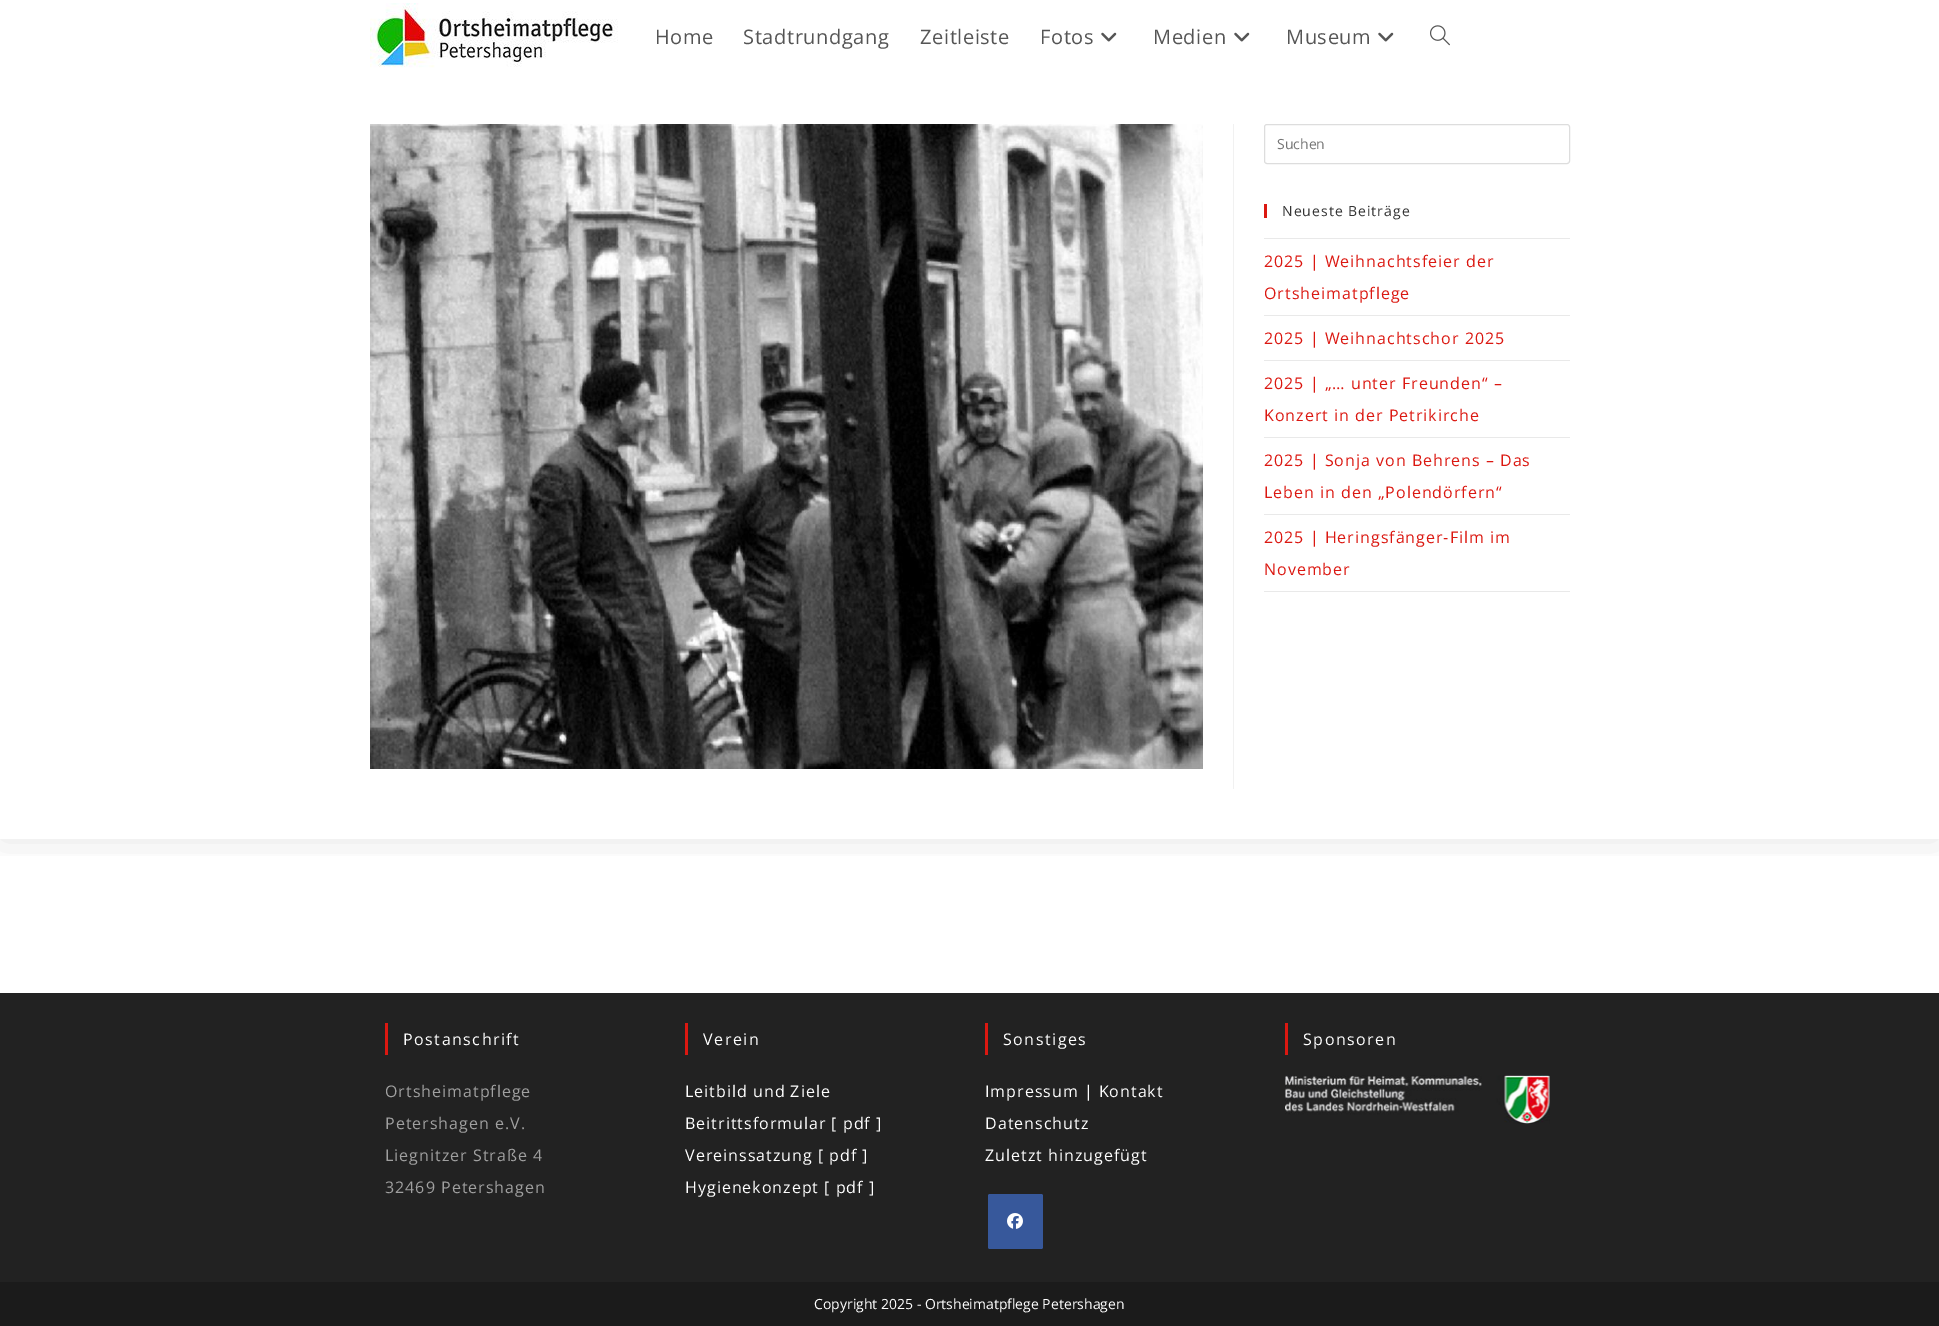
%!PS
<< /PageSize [1939 1326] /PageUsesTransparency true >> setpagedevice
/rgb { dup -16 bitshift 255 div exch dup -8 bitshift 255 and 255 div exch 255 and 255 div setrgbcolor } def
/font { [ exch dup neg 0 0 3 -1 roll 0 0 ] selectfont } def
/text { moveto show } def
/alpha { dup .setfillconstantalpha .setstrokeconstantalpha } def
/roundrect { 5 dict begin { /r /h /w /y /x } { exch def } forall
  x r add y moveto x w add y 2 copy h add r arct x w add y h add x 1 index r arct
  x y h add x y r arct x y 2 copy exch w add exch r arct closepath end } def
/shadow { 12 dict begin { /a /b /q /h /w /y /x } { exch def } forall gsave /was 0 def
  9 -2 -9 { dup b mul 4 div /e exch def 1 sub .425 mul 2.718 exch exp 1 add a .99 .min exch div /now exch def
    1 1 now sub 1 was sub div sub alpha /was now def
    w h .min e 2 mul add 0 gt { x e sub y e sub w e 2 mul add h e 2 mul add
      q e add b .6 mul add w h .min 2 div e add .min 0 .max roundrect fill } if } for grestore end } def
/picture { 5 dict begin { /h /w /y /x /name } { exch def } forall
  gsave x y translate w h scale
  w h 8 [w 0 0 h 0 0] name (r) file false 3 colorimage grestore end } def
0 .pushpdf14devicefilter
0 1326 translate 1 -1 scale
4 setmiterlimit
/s1 { /OpenSans-Regular 14 font 16#757575 rgb } def
/s2 { /OpenSans-Regular 14 font 16#FFFFFF rgb } def
16#FFFFFF rgb
0 0 1939 1326 rectfill
gsave
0 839 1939 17 rectclip
16#000000 rgb
0 74 1939 765 0 20 0.1 shadow
grestore
0 48 1939 26 rectfill
(pic1.raw) 370 3 248 65 picture
/OpenSans-Regular 20 font
16#555555 rgb
655 44 moveto 0.6 0 (Home) ashow
743 44 moveto 0.6 0 (Stadtrundgang) ashow
920 44 moveto 0.6 0 (Zeitleiste) ashow
1040 44 moveto 0.6 0 (Fotos) ashow
(pic2.raw) 1101 32 16 10 picture
1153 44 moveto 0.6 0 (Medien) ashow
(pic2.raw) 1234 32 16 10 picture
1286 44 moveto 0.6 0 (Museum) ashow
(pic2.raw) 1378 32 16 10 picture
(pic3.raw) 1430 25 20 21 picture
16#F1F1F1 rgb
1233 124 1 665 rectfill
(pic4.raw) 370 124 833 645 picture
16#DDDDDD rgb
1264.5 124.5 305 39 2.5 roundrect stroke
s1
(Suchen) 1277 149 text
16#DB1811 rgb
1264 204 3 14 rectfill
16#333333 rgb
1282 216 moveto 1 0 (Neueste Beiträge) ashow
16#E9E9E9 rgb
1264 238 306 1 rectfill
1264 315 306 1 rectfill
/OpenSans-Regular 16 font
16#DB1811 rgb
1264 267 moveto 1 0 (2025 | Weihnachtsfeier der) ashow
1264 299 moveto 1 0 (Ortsheimatpflege) ashow
16#E9E9E9 rgb
1264 360 306 1 rectfill
16#DB1811 rgb
1264 344 moveto 1 0 (2025 | Weihnachtschor 2025) ashow
16#E9E9E9 rgb
1264 437 306 1 rectfill
16#DB1811 rgb
1264 389 moveto 1 0 (2025 | „… unter Freunden“ –) ashow
1264 421 moveto 1 0 (Konzert in der Petrikirche) ashow
16#E9E9E9 rgb
1264 514 306 1 rectfill
16#DB1811 rgb
1264 466 moveto 1 0 (2025 | Sonja von Behrens – Das) ashow
1264 498 moveto 1 0 (Leben in den „Polendörfern“) ashow
16#E9E9E9 rgb
1264 591 306 1 rectfill
16#DB1811 rgb
1264 543 moveto 1 0 (2025 | Heringsfänger-Film im) ashow
1264 575 moveto 1 0 (November) ashow
16#222222 rgb
0 993 1939 289 rectfill
16#DB1811 rgb
385 1023 3 32 rectfill
16#FFFFFF rgb
403 1045 moveto 1.5 0 (Postanschrift) ashow
16#A0A0A0 rgb
385 1097 moveto 1 0 (Ortsheimatpflege) ashow
385 1129 moveto 1 0 (Petershagen e.V.) ashow
385 1161 moveto 1 0 (Liegnitzer Straße 4) ashow
385 1193 moveto 1 0 (32469 Petershagen) ashow
16#DB1811 rgb
685 1023 3 32 rectfill
16#FFFFFF rgb
703 1045 moveto 1.5 0 (Verein) ashow
685 1097 moveto 1 0 (Leitbild und Ziele) ashow
685 1129 moveto 1 0 (Beitrittsformular [ pdf ]) ashow
685 1161 moveto 1 0 (Vereinssatzung [ pdf ]) ashow
685 1193 moveto 1 0 (Hygienekonzept [ pdf ]) ashow
16#DB1811 rgb
985 1023 3 32 rectfill
16#FFFFFF rgb
1003 1045 moveto 1.5 0 (Sonstiges) ashow
985 1097 moveto 1 0 (Impressum | Kontakt) ashow
985 1129 moveto 1 0 (Datenschutz) ashow
985 1161 moveto 1 0 (Zuletzt hinzugefügt) ashow
16#37589B rgb
988 1194 55 55 2 roundrect fill
(pic5.raw) 1007 1213 16 16 picture
16#DB1811 rgb
1285 1023 3 32 rectfill
16#FFFFFF rgb
1303 1045 moveto 1.5 0 (Sponsoren) ashow
(pic6.raw) 1285 1075 265 49 picture
16#1B1B1B rgb
0 1282 1939 44 rectfill
s2
(Copyright 2025 - Ortsheimatpflege Petershagen) 814 1309 text
.poppdf14devicefilter showpage
